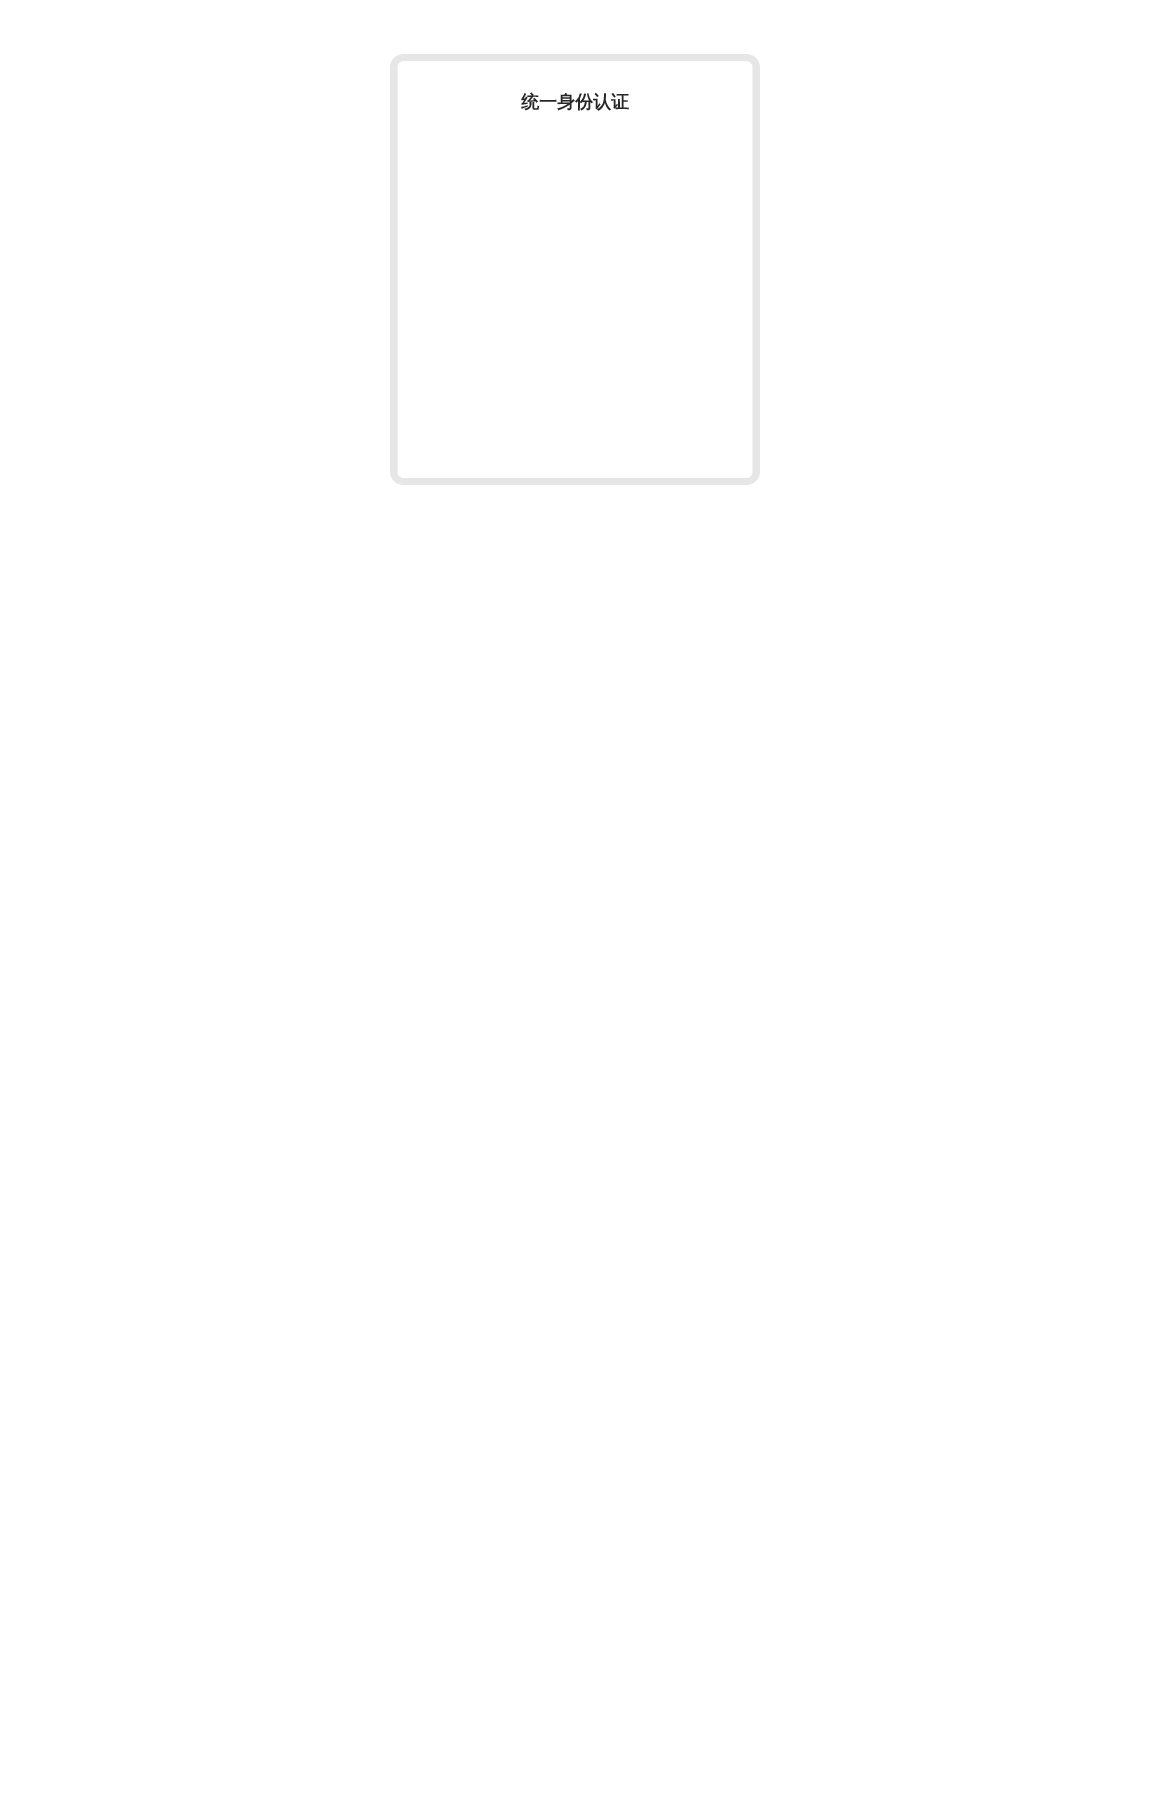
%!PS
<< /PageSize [1149 1796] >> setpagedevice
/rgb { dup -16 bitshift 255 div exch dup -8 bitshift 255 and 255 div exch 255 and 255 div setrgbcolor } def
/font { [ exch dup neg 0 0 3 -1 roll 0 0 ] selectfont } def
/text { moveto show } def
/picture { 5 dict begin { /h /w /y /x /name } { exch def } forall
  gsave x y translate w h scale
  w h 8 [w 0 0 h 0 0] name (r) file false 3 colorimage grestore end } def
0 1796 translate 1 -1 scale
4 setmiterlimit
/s1 { /WenQuanYiZenHei-Bold 18 font 16#262626 rgb } def
16#FFFFFF rgb
0 0 1149 1796 rectfill
(pic1.raw) 390 54 370 431 picture
s1
(统一身份认证) 521 108 text
showpage
